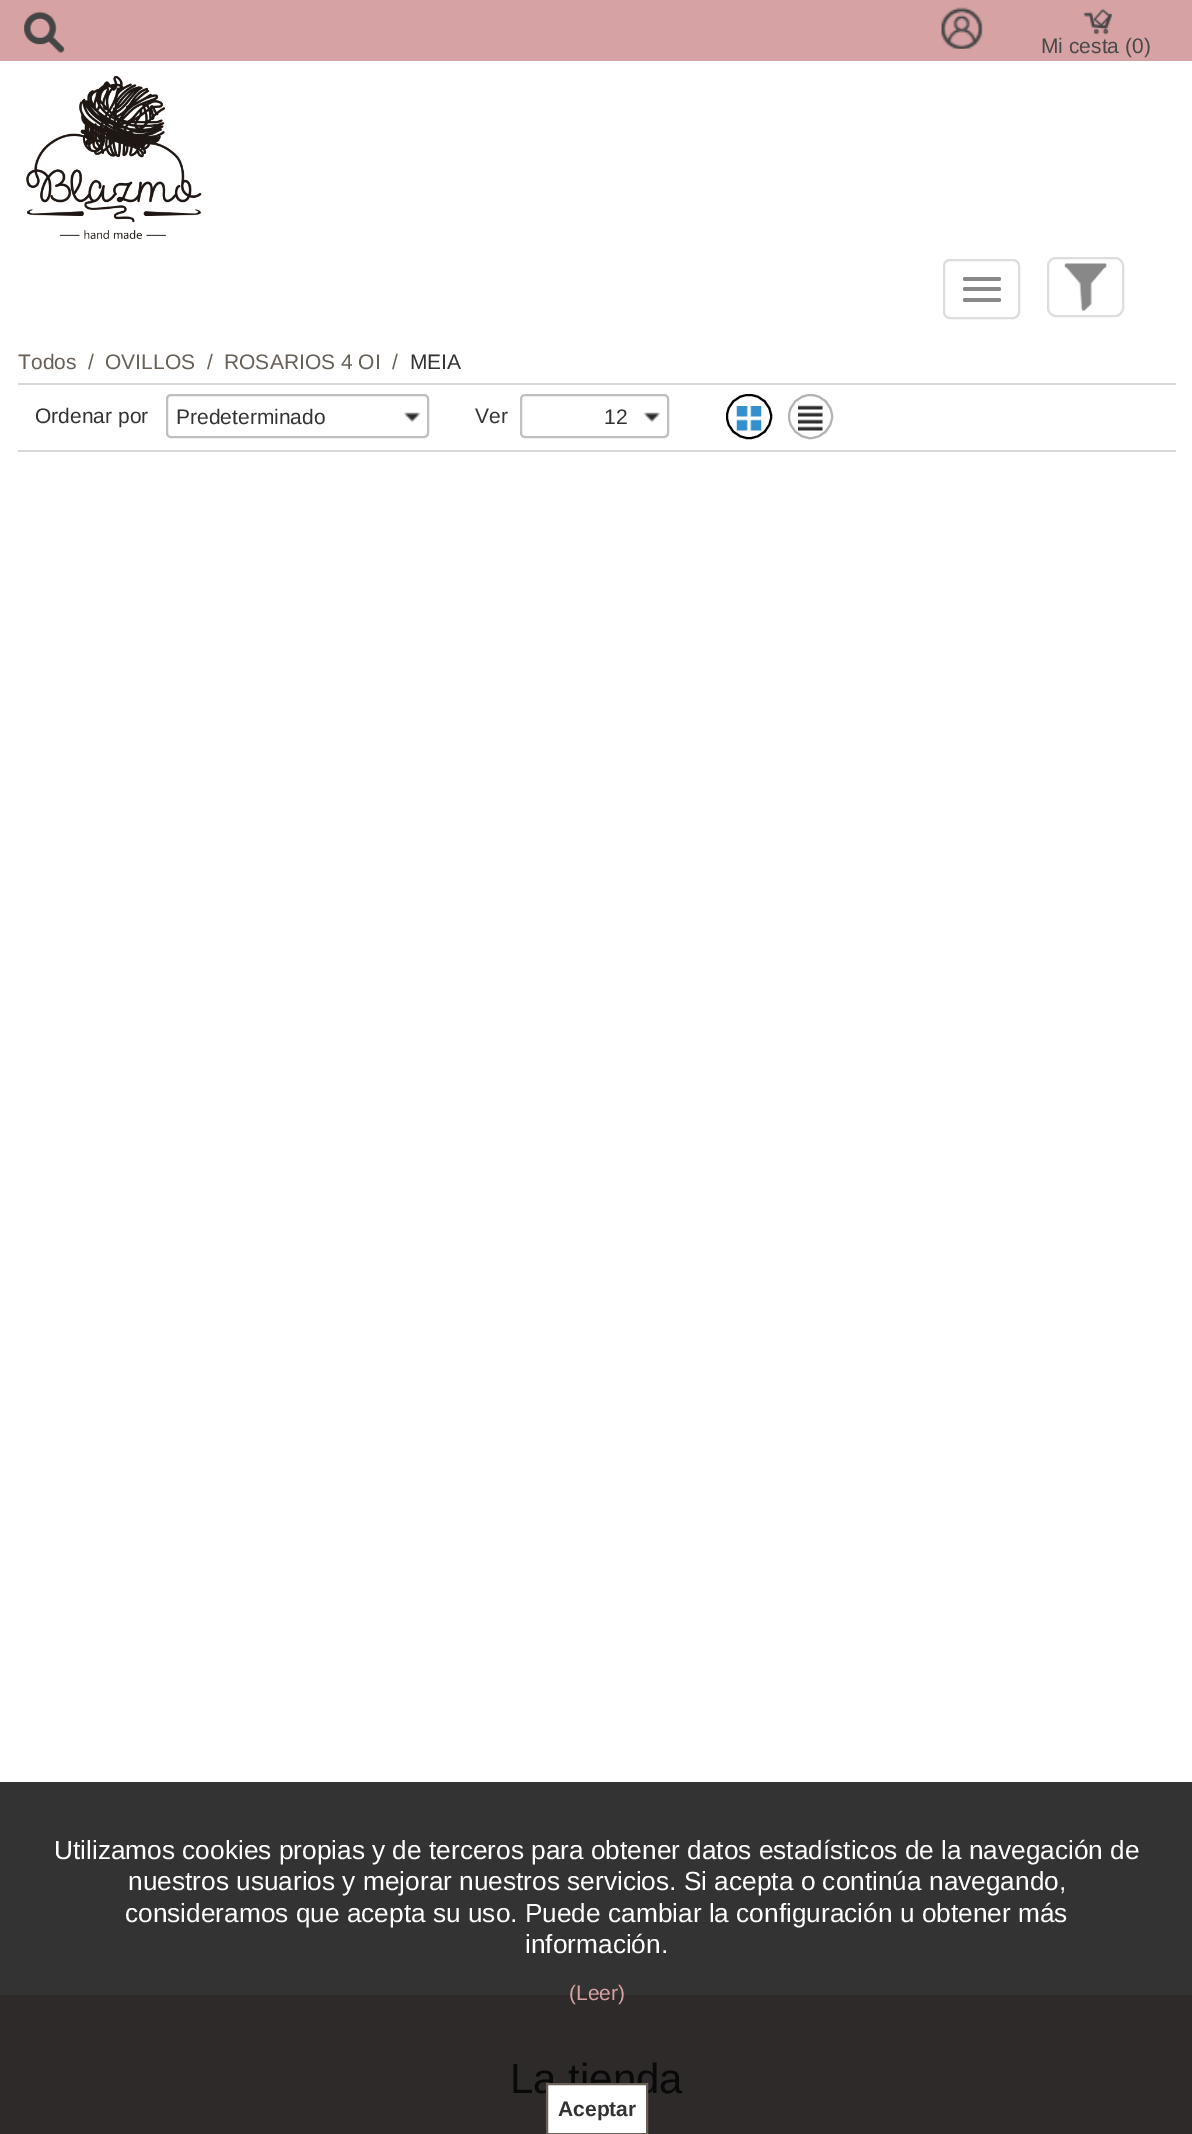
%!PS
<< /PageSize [1192 2134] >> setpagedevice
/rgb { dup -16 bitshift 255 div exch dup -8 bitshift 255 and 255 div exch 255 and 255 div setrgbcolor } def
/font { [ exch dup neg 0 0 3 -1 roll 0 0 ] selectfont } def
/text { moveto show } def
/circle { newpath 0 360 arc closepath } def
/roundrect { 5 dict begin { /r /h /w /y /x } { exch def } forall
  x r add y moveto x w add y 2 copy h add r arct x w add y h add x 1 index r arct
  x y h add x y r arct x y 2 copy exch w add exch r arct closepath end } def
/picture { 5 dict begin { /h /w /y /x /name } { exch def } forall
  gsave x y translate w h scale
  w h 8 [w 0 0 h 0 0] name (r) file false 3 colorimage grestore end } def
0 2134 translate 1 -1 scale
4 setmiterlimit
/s1 { /LiberationSans-Regular 21 font 16#494949 rgb } def
/s2 { /LiberationSans-Regular 21 font 16#696158 rgb } def
/s3 { /LiberationSans-Regular 21 font 16#333333 rgb } def
/s4 { /LiberationSans-Regular 26.25 font 16#FFFFFF rgb } def
/s5 { /LiberationSans-Regular 21 font 16#D7A2A4 rgb } def
/s6 { /LiberationSans-Regular 42 font 16#090909 rgb } def
/s7 { /LiberationSans-Bold 21 font 16#333333 rgb } def
16#FFFFFF rgb
0 0 1192 2134 rectfill
16#333333 rgb
0 1782 1192 213 rectfill
16#D7A2A4 rgb
0 0 1192 61 rectfill
(pic1.raw) 24 11 41 42 picture
(pic2.raw) 941 7 42 42 picture
(pic3.raw) 1083 8 29 27 picture
s1
(Mi cesta \(0\)) 1041 53 text
(pic4.raw) 26 76 176 163 picture
16#DDDDDD rgb
2 setlinewidth
944 260 75 58 6 roundrect stroke
16#888888 rgb
963 277 38 4 2 roundrect fill
963 287 38 4 2 roundrect fill
963 298 38 4 2 roundrect fill
(pic5.raw) 1064 263 43 48 picture
16#DDDDDD rgb
1048 258 75 58 8 roundrect stroke
s2
(Todos) 18 369 text
(/) 88 369 text
(OVILLOS) 105 369 text
(/) 207 369 text
(ROSARIOS 4 OI) 224 369 text
(/) 392 369 text
s3
(MEIA) 410 369 text
16#D8D8D8 rgb
18 383 1158 2 rectfill
18 450 1158 2 rectfill
s3
(Ordenar por) 35 423 text
16#C0C0C0 rgb
167 395 261 42 4 roundrect stroke
s3
(Predeterminado) 176 424 text
(pic6.raw) 404 412 17 11 picture
(Ver) 475 423 text
16#C0C0C0 rgb
521 395 147 42 4 roundrect stroke
s3
(12) 604 424 text
(pic7.raw) 643 412 18 11 picture
(pic8.raw) 736 406 26 25 picture
16#000000 rgb
727 395 44 43 21.5 roundrect stroke
(pic9.raw) 798 405 25 26 picture
16#B3B3B3 rgb
810.5 416.5 21.5 circle stroke
s4
(Utilizamos cookies propias y de terceros para obtener datos estadísticos de la navegación de) 54 1859 text
(nuestros usuarios y mejorar nuestros servicios. Si acepta o continúa navegando,) 128 1890 text
(consideramos que acepta su uso. Puede cambiar la configuración u obtener más) 125 1922 text
(información.) 525 1953 text
16#2F2A2A rgb
0 1995 1192 139 rectfill
s5
(\(Leer\)) 569 2000 text
s6
(La tienda) 510 2093 text
16#FFFFFF rgb
547 2084 moveto 647 2084 lineto 647 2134 lineto 547 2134 lineto closepath gsave fill grestore
16#696158 rgb
stroke
s7
(Aceptar) 558 2116 text
showpage
